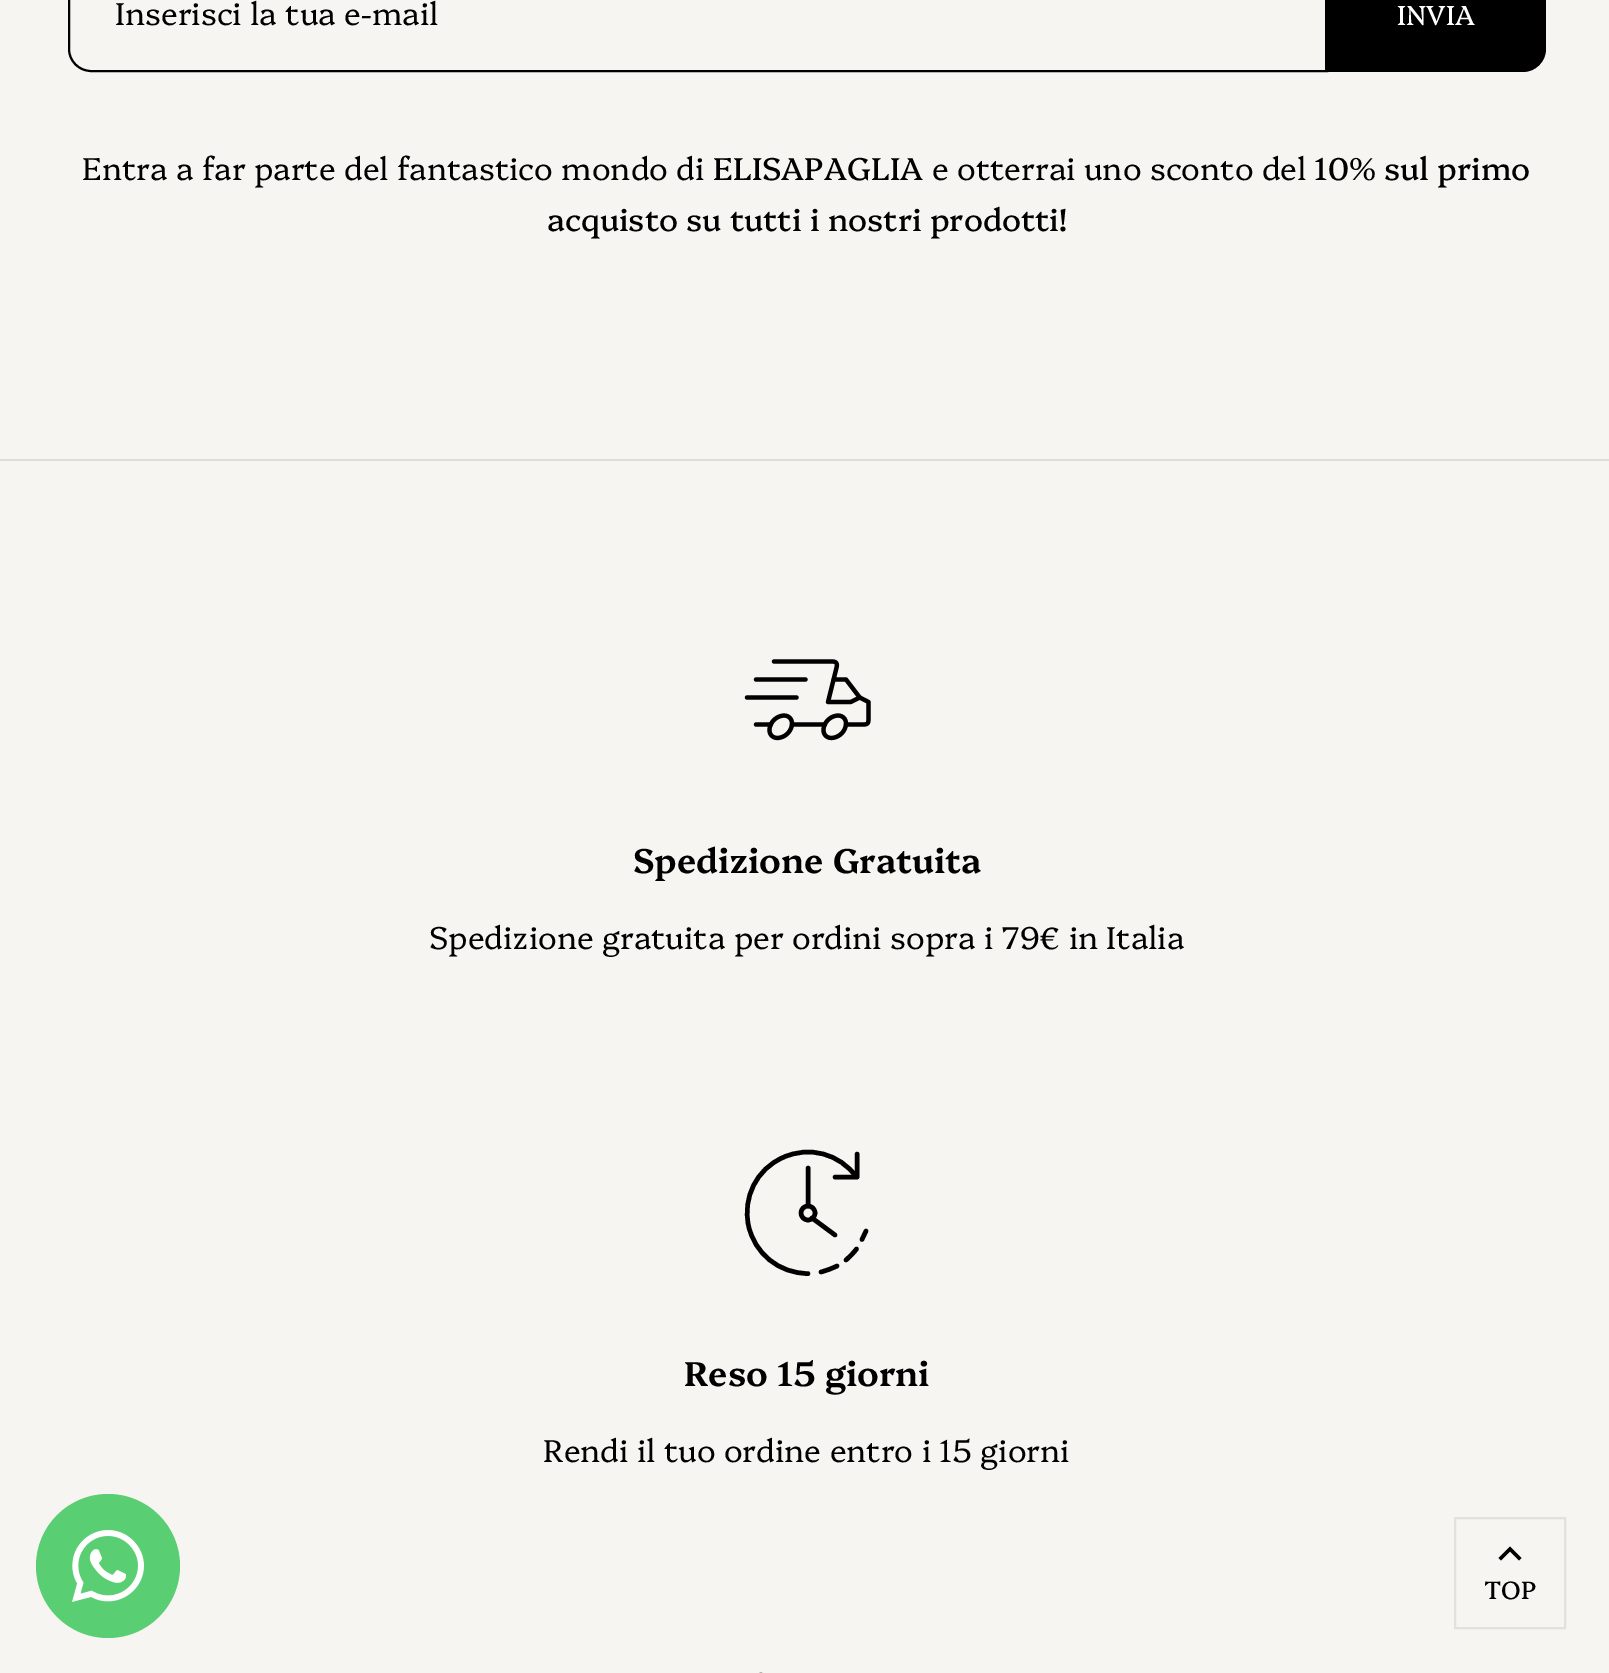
%!PS
<< /PageSize [1609 1673] >> setpagedevice
/rgb { dup -16 bitshift 255 div exch dup -8 bitshift 255 and 255 div exch 255 and 255 div setrgbcolor } def
/font { [ exch dup neg 0 0 3 -1 roll 0 0 ] selectfont } def
/text { moveto show } def
/circle { newpath 0 360 arc closepath } def
/picture { 5 dict begin { /h /w /y /x /name } { exch def } forall
  gsave x y translate w h scale
  w h 8 [w 0 0 h 0 0] name (r) file false 3 colorimage grestore end } def
0 1673 translate 1 -1 scale
4 setmiterlimit
/s1 { /Platypi-Light 31.6 font 16#000000 rgb } def
/s2 { /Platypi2-Light 27.5 font 16#FFFFFF rgb } def
/s3 { /Platypi2-Light 31.6 font 16#000000 rgb } def
/s4 { /Platypi-SemiBold 34.5 font 16#000000 rgb } def
/s5 { /Platypi2-Light 25 font 16#000000 rgb } def
16#F7F5F1 rgb
0 0 1609 1673 rectfill
16#000000 rgb
2 setlinewidth
91 -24 moveto 1327 -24 lineto 1327 71 lineto 91 71 lineto 79 71 69 61 69 49 curveto 69 -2 lineto 69 -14 79 -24 91 -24 curveto closepath stroke
s1
(Inserisci la tua e-mail) 115 25 text
1325 -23 moveto 1523 -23 lineto 1535.5 -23 1546 -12.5 1546 0 curveto 1546 49 lineto 1546 61.5 1535.5 72 1523 72 curveto 1325 72 lineto closepath fill
s2
(INVIA) 1397 25 text
s1
(Entra a far parte del fantastico mondo di) 82 180 text
s3
(ELISAPAGLIA) 713 180 text
s1
(e otterrai uno sconto del) 932 180 text
s3
(10% sul primo) 1314 180 text
(acquisto su tutti i nostri prodotti!) 547 231 text
16#DEDDD9 rgb
0 459 1609 2 rectfill
(pic1.raw) 744 659 127 82 picture
s4
(Spedizione Gratuita) 633 873 text
s1
(Spedizione gratuita per ordini sopra i 79€ in Italia) 429 949 text
4.5 setlinewidth
1 setlinecap
1 setlinejoin
857 1154 moveto 857 1177 lineto 835 1177 lineto 808 1273.5 moveto 779 1273.5 754.5 1253.5 748.5 1225.5 curveto 742.5 1197.5 756.5 1169 783 1157.5 curveto 809 1145.5 839.5 1153.5 856.5 1177 curveto 837 1266 moveto 832 1268.5 826.5 1270.5 821 1272 curveto 856.5 1249 moveto 853.5 1253 850 1256.5 846 1260 curveto 866 1231 moveto 862 1239.5 lineto stroke
0 setlinecap
0 setlinejoin
808 1213 7 circle stroke
1 setlinecap
1 setlinejoin
812 1218 moveto 835 1235 lineto 808 1168 moveto 808 1206 lineto stroke
s4
(Reso 15 giorni) 684 1386 text
s1
(Rendi il tuo ordine entro i 15 giorni) 543 1462 text
2.2 setlinewidth
853.5 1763.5 moveto 856 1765.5 860 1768 859.5 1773 curveto 859 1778.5 850.5 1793 832.5 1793 curveto 814.5 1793 792.5 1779 773.5 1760 curveto 754.5 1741 740 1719 740 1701 curveto 740 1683 756 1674.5 760.5 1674 curveto 764.5 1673.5 768.5 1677.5 770 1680 curveto 783.5 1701 lineto 786 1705 785 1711 781 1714 curveto 775 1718.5 765.5 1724 787.5 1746 curveto 809.5 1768 815 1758 819.5 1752.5 curveto 822.5 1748.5 828.5 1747.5 832.5 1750 curveto closepath stroke
16#59CE72 rgb
108 1566 72 circle fill
(pic2.raw) 72 1530 72 72 picture
16#E3E1DE rgb
2 setlinewidth
0 setlinecap
0 setlinejoin
1455 1518 110 110 rectstroke
16#000000 rgb
1510 1551.5 moveto 1501 1560.5 lineto 1498.5 1558 lineto 1510 1546.5 lineto 1521.5 1558 lineto 1519 1560.5 lineto closepath eofill
s5
(TOP) 1484 1599 text
showpage
